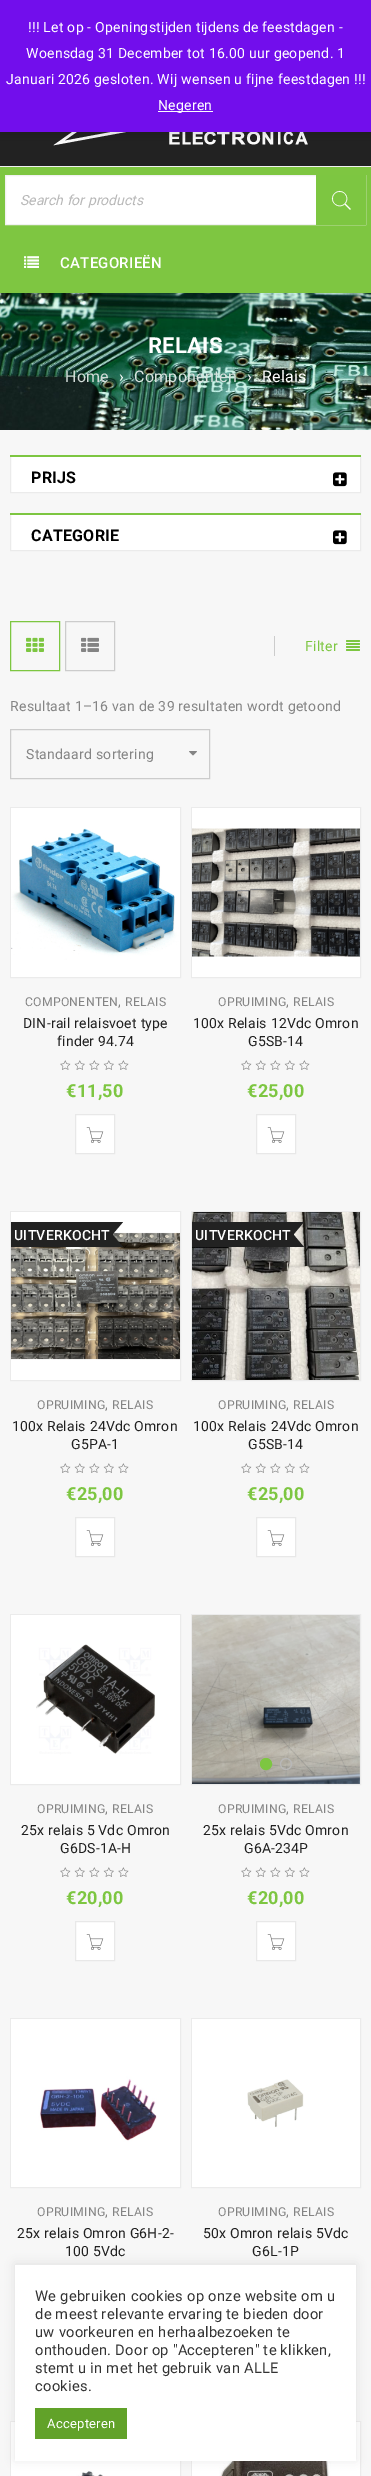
%!PS
<< /PageSize [371 2476] /PageUsesTransparency true >> setpagedevice
/rgb { dup -16 bitshift 255 div exch dup -8 bitshift 255 and 255 div exch 255 and 255 div setrgbcolor } def
/font { [ exch dup neg 0 0 3 -1 roll 0 0 ] selectfont } def
/text { moveto show } def
/alpha { dup .setfillconstantalpha .setstrokeconstantalpha } def
/circle { newpath 0 360 arc closepath } def
/roundrect { 5 dict begin { /r /h /w /y /x } { exch def } forall
  x r add y moveto x w add y 2 copy h add r arct x w add y h add x 1 index r arct
  x y h add x y r arct x y 2 copy exch w add exch r arct closepath end } def
/shadow { 12 dict begin { /a /b /q /h /w /y /x } { exch def } forall gsave /was 0 def
  9 -2 -9 { dup b mul 4 div /e exch def 1 sub .425 mul 2.718 exch exp 1 add a .99 .min exch div /now exch def
    1 1 now sub 1 was sub div sub alpha /was now def
    w h .min e 2 mul add 0 gt { x e sub y e sub w e 2 mul add h e 2 mul add
      q e add b .6 mul add w h .min 2 div e add .min 0 .max roundrect fill } if } for grestore end } def
/picture { 5 dict begin { /h /w /y /x /name } { exch def } forall
  gsave x y translate w h scale
  w h 8 [w 0 0 h 0 0] name (r) file false 3 colorimage grestore end } def
0 .pushpdf14devicefilter
0 2476 translate 1 -1 scale
4 setmiterlimit
/s1 { /Roboto-Italic 14 font 16#B8B8B8 rgb } def
16#F7F7F7 rgb
0 0 371 2476 rectfill
16#222222 rgb
0 132 371 34 rectfill
(pic1.raw) 53 132 255 14 picture
16#000000 rgb
0 1 371 132 0 7 0.2 shadow
16#720EEC rgb
0 0 371 132 rectfill
/Roboto-Regular 14 font
16#FFFFFF rgb
28 32 moveto 0.25 0 (!!! Let op - Openingstijden tijdens de feestdagen -) ashow
26 58 moveto 0.25 0 (Woensdag 31 December tot 16.00 uur geopend. 1) ashow
6 84 moveto 0.25 0 (Januari 2026 gesloten. Wij wensen u fijne feestdagen !!!) ashow
16#FCFBFE rgb
158 111 55 1 rectfill
16#FFFFFF rgb
158 110 moveto 0.25 0 (Negeren) ashow
16#7EC641 rgb
0 167 371 126 rectfill
16#F1F1F1 rgb
0 166 371 1 rectfill
16#FFFFFF rgb
6 176 310 48 rectfill
16#F1F1F1 rgb
5.5 175.5 360 49 rectstroke
s1
(Search for products) 20 205 text
16#7DC641 rgb
316 175 50 50 rectfill
(pic2.raw) 331 190 20 20 picture
(pic3.raw) 24 256 15 12 picture
/Roboto-Medium 15 font
16#FFFFFF rgb
60 268 moveto 0.25 0 (CATEGORIEËN) ashow
(pic4.raw) 0 293 371 137 picture
/Roboto-Bold 22 font
148 353 moveto 0.25 0 (RELAIS) ashow
/Roboto-Regular 16 font
16#D2DCD8 rgb
65 382 moveto 0.25 0 (Home) ashow
16#FFFFFF rgb
119 382 moveto 0.25 0 (›) ashow
16#D9E3E0 rgb
134 382 moveto 0.25 0 (Componenten) ashow
16#FFFFFF rgb
247 382 moveto 0.25 0 (›) ashow
262 382 moveto 0.25 0 (Relais) ashow
11 457 349 35 rectfill
16#EBEBEB rgb
10.5 455.5 350 37 rectstroke
16#7DC641 rgb
10 455 351 2 rectfill
/Roboto-Bold 16 font
16#000000 rgb
31 483 moveto 0.25 0 (PRIJS) ashow
(pic5.raw) 333 472 14 15 picture
16#FFFFFF rgb
11 515 349 35 rectfill
16#EBEBEB rgb
10.5 513.5 350 37 rectstroke
16#7DC641 rgb
10 513 351 2 rectfill
16#000000 rgb
31 541 moveto 0.25 0 (CATEGORIE) ashow
(pic5.raw) 333 530 14 15 picture
16#7DC641 rgb
10.5 621.5 49 49 rectstroke
(pic6.raw) 26 637 18 15 picture
16#CCCCCC rgb
65.5 621.5 49 49 rectstroke
(pic7.raw) 81 637 18 15 picture
274 636 1 20 rectfill
/Roboto-Regular 14 font
16#7DC641 rgb
305 651 moveto 0.25 0 (Filter) ashow
(pic8.raw) 346 640 14 11 picture
16#848484 rgb
10 711 moveto 0.25 0 (Resultaat 1–16 van de 39 resultaten wordt getoond) ashow
16#CCCCCC rgb
10.5 729.5 199 49 rectstroke
16#848484 rgb
26 759 moveto 0.25 0 (Standaard sortering) ashow
(pic9.raw) 189 751 8 5 picture
16#EBEBEB rgb
10.5 807.5 170 170 rectstroke
(pic10.raw) 11 808 169 169 picture
/Roboto-Regular 12.25 font
16#848484 rgb
25 1006 moveto 0.25 0 (COMPONENTEN) ashow
/Roboto-Regular 14 font
118 1006 moveto 0.25 0 (,) ashow
/Roboto-Regular 12.25 font
125 1006 moveto 0.25 0 (RELAIS) ashow
/Roboto-Regular 14 font
16#202020 rgb
23 1028 moveto 0.2 0 (DIN-rail relaisvoet type) ashow
57 1046 moveto 0.2 0 (finder 94.74) ashow
(pic11.raw) 60 1060 69 10 picture
/Roboto-Bold 18 font
16#7DC641 rgb
66 1097 moveto 0.25 0 (€11,50) ashow
16#FFFFFF rgb
75.5 1114.5 moveto 114.5 1114.5 lineto 114.5 1153.5 lineto 75.5 1153.5 lineto closepath gsave fill grestore
16#E8E8E8 rgb
stroke
(pic12.raw) 86 1127 18 16 picture
16#EBEBEB rgb
191.5 807.5 169 170 rectstroke
(pic13.raw) 192 808 168 169 picture
/Roboto-Regular 12.25 font
16#848484 rgb
218 1006 moveto 0.25 0 (OPRUIMING) ashow
/Roboto-Regular 14 font
286 1006 moveto 0.25 0 (,) ashow
/Roboto-Regular 12.25 font
293 1006 moveto 0.25 0 (RELAIS) ashow
/Roboto-Regular 14 font
16#202020 rgb
193 1028 moveto 0.2 0 (100x Relais 12Vdc Omron) ashow
248 1046 moveto 0.2 0 (G5SB-14) ashow
(pic11.raw) 241 1060 69 10 picture
/Roboto-Bold 18 font
16#7DC641 rgb
247 1097 moveto 0.25 0 (€25,00) ashow
16#FFFFFF rgb
256.5 1114.5 moveto 295.5 1114.5 lineto 295.5 1153.5 lineto 256.5 1153.5 lineto closepath gsave fill grestore
16#E8E8E8 rgb
stroke
(pic12.raw) 267 1127 18 16 picture
16#EBEBEB rgb
10.5 1211.5 170 169 rectstroke
(pic14.raw) 11 1212 169 168 picture
16#222222 rgb
11 1222 102 25 rectfill
/Roboto-Medium 14 font
16#FFFFFF rgb
14 1240 moveto 0.25 0 (UITVERKOCHT) ashow
16#222222 rgb
112 1222 moveto 123 1222 lineto 112 1235 lineto closepath fill
123 1247 moveto 112 1247 lineto 112 1234 lineto closepath fill
/Roboto-Regular 12.25 font
16#848484 rgb
37 1409 moveto 0.25 0 (OPRUIMING) ashow
/Roboto-Regular 14 font
105 1409 moveto 0.25 0 (,) ashow
/Roboto-Regular 12.25 font
112 1409 moveto 0.25 0 (RELAIS) ashow
/Roboto-Regular 14 font
16#202020 rgb
12 1431 moveto 0.2 0 (100x Relais 24Vdc Omron) ashow
71 1449 moveto 0.2 0 (G5PA-1) ashow
(pic11.raw) 60 1463 69 10 picture
/Roboto-Bold 18 font
16#7DC641 rgb
66 1500 moveto 0.25 0 (€25,00) ashow
16#FFFFFF rgb
75.5 1517.5 moveto 114.5 1517.5 lineto 114.5 1556.5 lineto 75.5 1556.5 lineto closepath gsave fill grestore
16#E8E8E8 rgb
stroke
(pic12.raw) 86 1530 18 16 picture
16#EBEBEB rgb
191.5 1211.5 169 169 rectstroke
(pic15.raw) 192 1212 168 168 picture
16#222222 rgb
192 1222 102 25 rectfill
/Roboto-Medium 14 font
16#FFFFFF rgb
195 1240 moveto 0.25 0 (UITVERKOCHT) ashow
16#222222 rgb
293 1222 moveto 304 1222 lineto 293 1235 lineto closepath fill
304 1247 moveto 293 1247 lineto 293 1234 lineto closepath fill
/Roboto-Regular 12.25 font
16#848484 rgb
218 1409 moveto 0.25 0 (OPRUIMING) ashow
/Roboto-Regular 14 font
286 1409 moveto 0.25 0 (,) ashow
/Roboto-Regular 12.25 font
293 1409 moveto 0.25 0 (RELAIS) ashow
/Roboto-Regular 14 font
16#202020 rgb
193 1431 moveto 0.2 0 (100x Relais 24Vdc Omron) ashow
248 1449 moveto 0.2 0 (G5SB-14) ashow
(pic11.raw) 241 1463 69 10 picture
/Roboto-Bold 18 font
16#7DC641 rgb
247 1500 moveto 0.25 0 (€25,00) ashow
16#FFFFFF rgb
256.5 1517.5 moveto 295.5 1517.5 lineto 295.5 1556.5 lineto 256.5 1556.5 lineto closepath gsave fill grestore
16#E8E8E8 rgb
stroke
(pic12.raw) 267 1530 18 16 picture
16#EBEBEB rgb
10.5 1614.5 170 170 rectstroke
(pic16.raw) 11 1615 169 169 picture
/Roboto-Regular 12.25 font
16#848484 rgb
37 1813 moveto 0.25 0 (OPRUIMING) ashow
/Roboto-Regular 14 font
105 1813 moveto 0.25 0 (,) ashow
/Roboto-Regular 12.25 font
112 1813 moveto 0.25 0 (RELAIS) ashow
/Roboto-Regular 14 font
16#202020 rgb
21 1835 moveto 0.2 0 (25x relais 5 Vdc Omron) ashow
60 1853 moveto 0.2 0 (G6DS-1A-H) ashow
(pic11.raw) 60 1867 69 10 picture
/Roboto-Bold 18 font
16#7DC641 rgb
66 1904 moveto 0.25 0 (€20,00) ashow
16#FFFFFF rgb
75.5 1921.5 moveto 114.5 1921.5 lineto 114.5 1960.5 lineto 75.5 1960.5 lineto closepath gsave fill grestore
16#E8E8E8 rgb
stroke
(pic12.raw) 86 1934 18 16 picture
16#EBEBEB rgb
191.5 1614.5 169 170 rectstroke
(pic17.raw) 192 1615 168 169 picture
16#7DC641 rgb
266 1764 5.5 circle gsave fill grestore
stroke
16#B8B8B8 rgb
286 1764 5.5 circle stroke
/Roboto-Regular 12.25 font
16#848484 rgb
218 1813 moveto 0.25 0 (OPRUIMING) ashow
/Roboto-Regular 14 font
286 1813 moveto 0.25 0 (,) ashow
/Roboto-Regular 12.25 font
293 1813 moveto 0.25 0 (RELAIS) ashow
/Roboto-Regular 14 font
16#202020 rgb
203 1835 moveto 0.2 0 (25x relais 5Vdc Omron) ashow
244 1853 moveto 0.2 0 (G6A-234P) ashow
(pic11.raw) 241 1867 69 10 picture
/Roboto-Bold 18 font
16#7DC641 rgb
247 1904 moveto 0.25 0 (€20,00) ashow
16#FFFFFF rgb
256.5 1921.5 moveto 295.5 1921.5 lineto 295.5 1960.5 lineto 256.5 1960.5 lineto closepath gsave fill grestore
16#E8E8E8 rgb
stroke
(pic12.raw) 267 1934 18 16 picture
16#EBEBEB rgb
10.5 2018.5 170 169 rectstroke
(pic18.raw) 11 2019 169 168 picture
/Roboto-Regular 12.25 font
16#848484 rgb
37 2216 moveto 0.25 0 (OPRUIMING) ashow
/Roboto-Regular 14 font
105 2216 moveto 0.25 0 (,) ashow
/Roboto-Regular 12.25 font
112 2216 moveto 0.25 0 (RELAIS) ashow
/Roboto-Regular 14 font
16#202020 rgb
17 2238 moveto 0.2 0 (25x relais Omron G6H-2-) ashow
65 2256 moveto 0.2 0 (100 5Vdc) ashow
16#EBEBEB rgb
191.5 2018.5 169 169 rectstroke
(pic19.raw) 192 2019 168 168 picture
/Roboto-Regular 12.25 font
16#848484 rgb
218 2216 moveto 0.25 0 (OPRUIMING) ashow
/Roboto-Regular 14 font
286 2216 moveto 0.25 0 (,) ashow
/Roboto-Regular 12.25 font
293 2216 moveto 0.25 0 (RELAIS) ashow
/Roboto-Regular 14 font
16#202020 rgb
203 2238 moveto 0.2 0 (50x Omron relais 5Vdc) ashow
252 2256 moveto 0.2 0 (G6L-1P) ashow
16#EBEBEB rgb
10.5 2421.5 170 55 rectstroke
(pic20.raw) 11 2422 169 54 picture
191.5 2421.5 169 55 rectstroke
(pic21.raw) 192 2422 168 54 picture
16#ACABAB rgb
15 2264 341 196 0 5 0.3 shadow
16#FFFFFF rgb
15 2265 341 196 rectfill
/Roboto-Regular 14.7 font
16#333333 rgb
35 2301 moveto 0.25 0 (We gebruiken cookies op onze website om u) ashow
35 2319 moveto 0.25 0 (de meest relevante ervaring te bieden door) ashow
35 2337 moveto 0.25 0 (uw voorkeuren en herhaalbezoeken te) ashow
35 2355 moveto 0.25 0 (onthouden. Door op "Accepteren" te klikken,) ashow
35 2373 moveto 0.25 0 (stemt u in met het gebruik van ALLE) ashow
35 2391 moveto 0.25 0 (cookies.) ashow
16#61A229 rgb
35 2408 92 31 rectfill
/Roboto-Regular 13 font
16#FFFFFF rgb
47 2428 moveto 0.25 0 (Accepteren) ashow
.poppdf14devicefilter showpage
